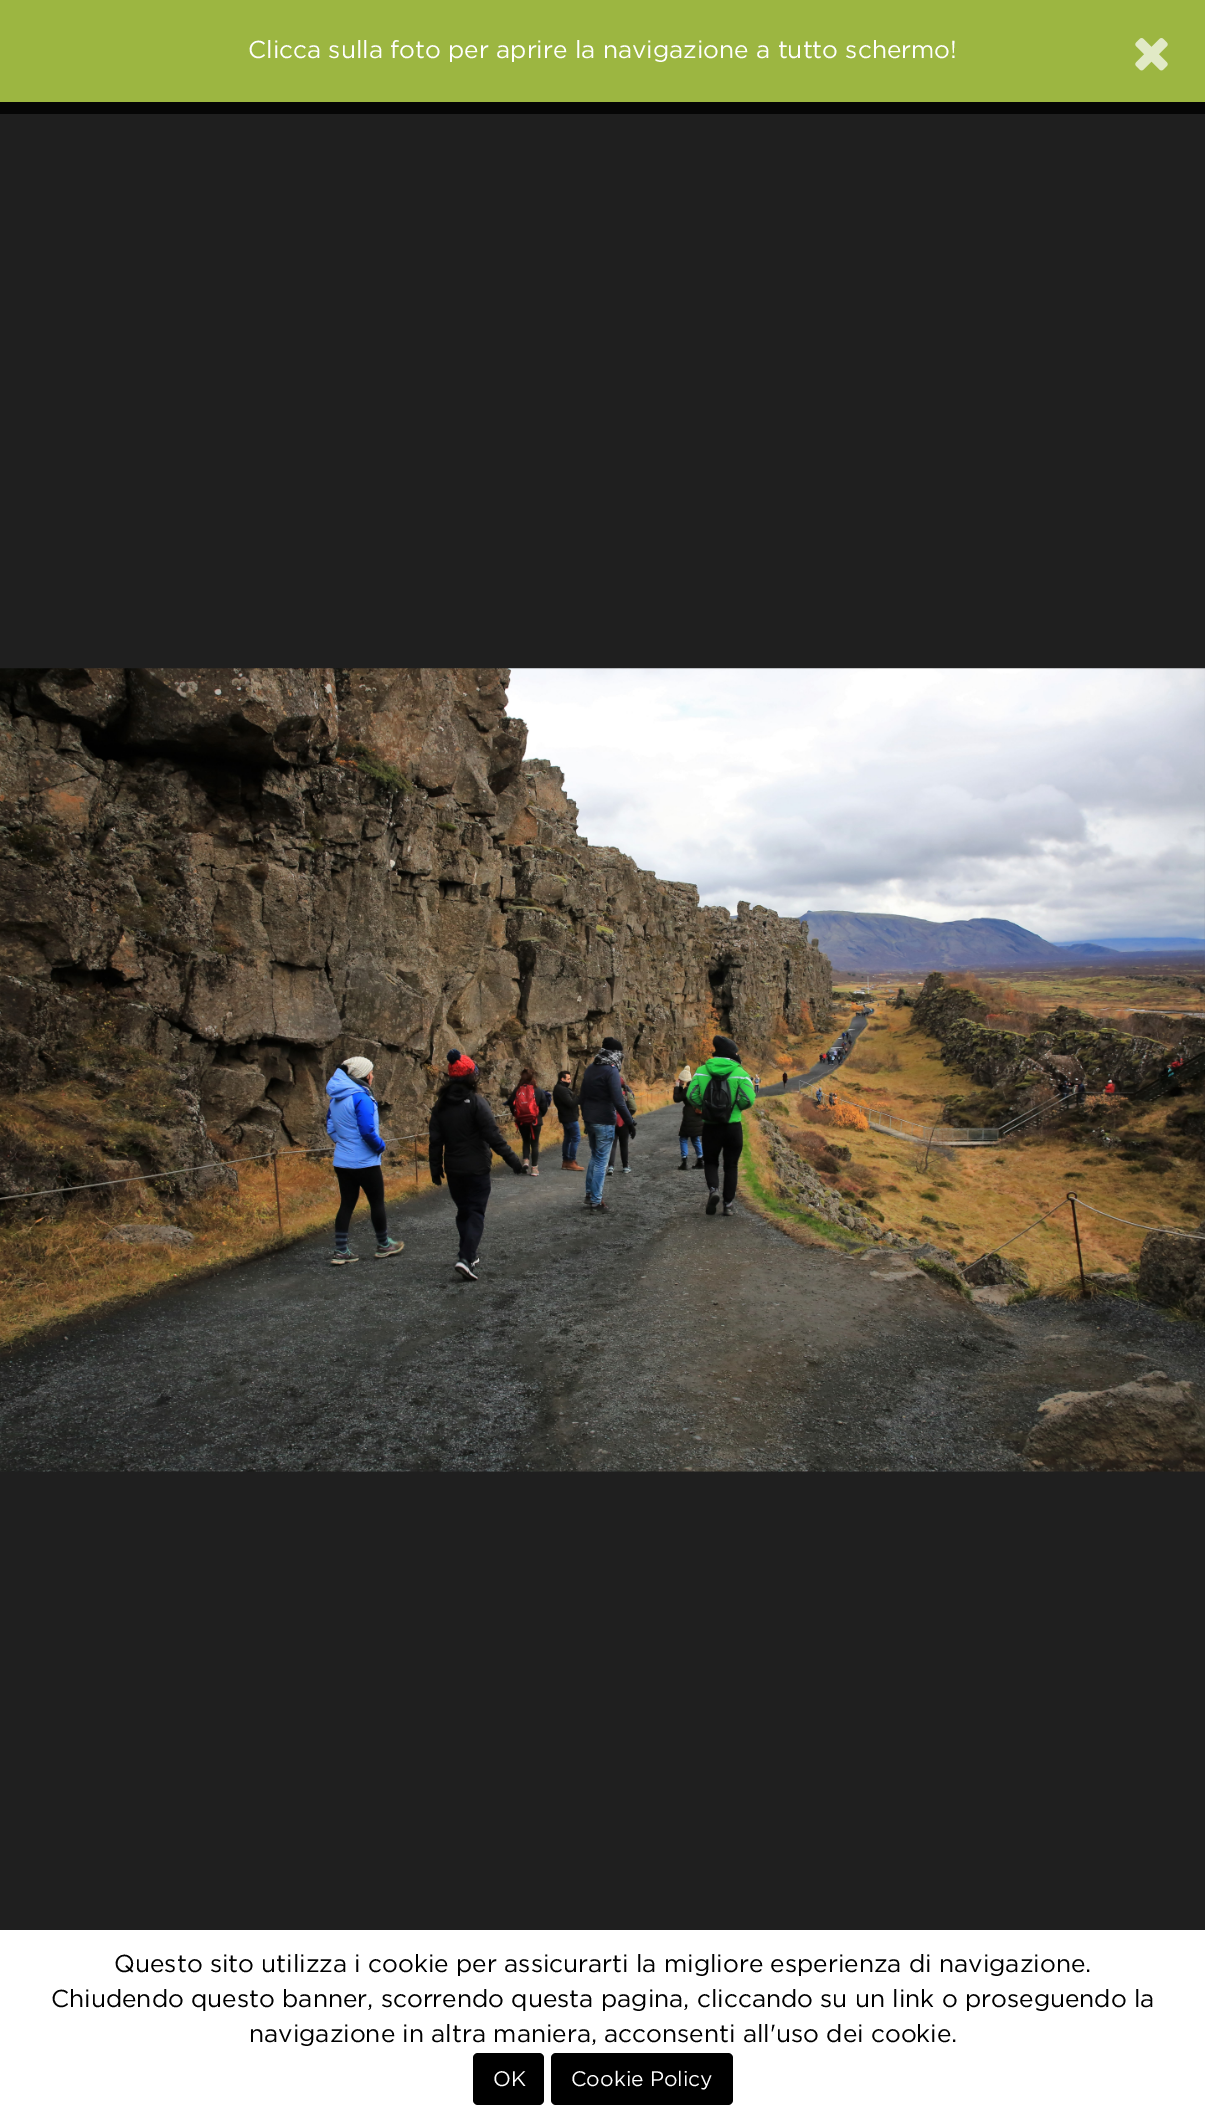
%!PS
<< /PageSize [1205 2122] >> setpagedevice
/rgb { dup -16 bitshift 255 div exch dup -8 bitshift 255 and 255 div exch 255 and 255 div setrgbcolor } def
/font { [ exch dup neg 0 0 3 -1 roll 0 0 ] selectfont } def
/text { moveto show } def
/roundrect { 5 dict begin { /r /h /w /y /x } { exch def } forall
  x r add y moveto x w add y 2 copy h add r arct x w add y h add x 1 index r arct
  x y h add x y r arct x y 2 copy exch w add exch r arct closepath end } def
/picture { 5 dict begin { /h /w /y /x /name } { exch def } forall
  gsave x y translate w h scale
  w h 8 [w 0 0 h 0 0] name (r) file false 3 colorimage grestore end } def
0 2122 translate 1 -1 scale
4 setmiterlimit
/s1 { /Gotham-Regular 24.5 font 16#FFFFFF rgb } def
/s2 { /Gotham-Regular 24.5 font 16#000000 rgb } def
/s3 { /Gotham-Regular 21 font 16#FFFFFF rgb } def
16#1F1F1F rgb
0 0 1205 2122 rectfill
16#9CB641 rgb
0 0 1205 102 rectfill
s1
(Clicca sulla foto per aprire la navigazione a tutto schermo!) 248 58 text
(pic1.raw) 1135 38 33 33 picture
16#060606 rgb
0 102 1205 12 rectfill
(pic2.raw) 0 668 1205 804 picture
16#FFFFFF rgb
0 1930 1205 192 rectfill
s2
(Questo sito utilizza i cookie per assicurarti la migliore esperienza di navigazione.) 114 1972 text
(Chiudendo questo banner, scorrendo questa pagina, cliccando su un link o proseguendo la) 51 2007 text
(navigazione in altra maniera, acconsenti all'uso dei cookie.) 249 2042 text
473 2053 71 52 5 roundrect fill
s3
(OK) 493 2086 text
16#000000 rgb
551 2053 182 52 5 roundrect fill
s3
(Cookie Policy) 571 2086 text
showpage
